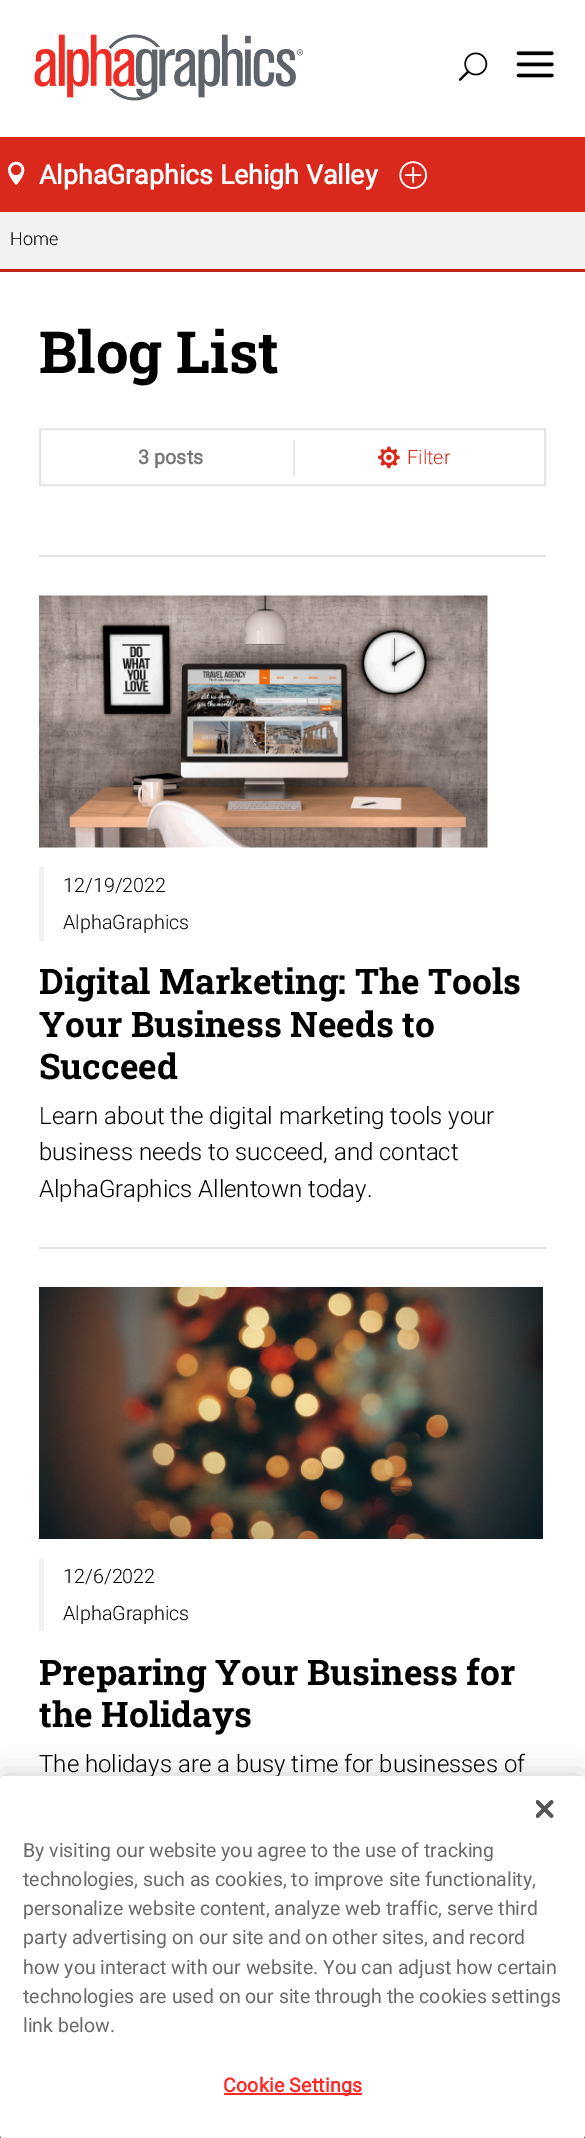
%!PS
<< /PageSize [585 2138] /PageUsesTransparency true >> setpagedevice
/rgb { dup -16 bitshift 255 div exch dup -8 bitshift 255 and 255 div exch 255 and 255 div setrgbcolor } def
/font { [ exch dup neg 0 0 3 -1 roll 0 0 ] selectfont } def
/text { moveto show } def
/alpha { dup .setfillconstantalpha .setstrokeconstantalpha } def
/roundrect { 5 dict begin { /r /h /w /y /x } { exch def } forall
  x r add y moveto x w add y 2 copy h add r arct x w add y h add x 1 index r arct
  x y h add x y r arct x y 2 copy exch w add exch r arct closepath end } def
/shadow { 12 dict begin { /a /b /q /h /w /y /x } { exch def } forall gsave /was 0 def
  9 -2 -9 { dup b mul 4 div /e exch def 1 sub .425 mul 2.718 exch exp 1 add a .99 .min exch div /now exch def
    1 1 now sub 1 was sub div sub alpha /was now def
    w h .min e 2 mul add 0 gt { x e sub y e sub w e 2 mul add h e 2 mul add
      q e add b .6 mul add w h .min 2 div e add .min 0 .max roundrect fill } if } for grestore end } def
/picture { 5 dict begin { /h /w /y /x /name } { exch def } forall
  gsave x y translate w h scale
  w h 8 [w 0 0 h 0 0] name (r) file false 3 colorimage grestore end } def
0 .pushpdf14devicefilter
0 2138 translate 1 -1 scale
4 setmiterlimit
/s1 { /Roboto-Bold 26.75 font 16#FFFFFF rgb } def
/s2 { /Roboto-Light 18 font 16#000000 rgb } def
/s3 { /RobotoSlab-Bold 58 font 16#000000 rgb } def
/s4 { /Roboto-Bold 19.75 font 16#75787B rgb } def
/s5 { /Roboto-Light 19.75 font 16#DA291C rgb } def
/s6 { /Roboto-Light 19.75 font 16#000000 rgb } def
/s7 { /RobotoSlab-Bold 35.25 font 16#000000 rgb } def
/s8 { /Roboto-Light 24 font 16#000000 rgb } def
/s9 { /Roboto-Regular 19.5 font 16#696969 rgb } def
16#FFFFFF rgb
0 0 585 2138 rectfill
(pic1.raw) 34 34 269 67 picture
(pic2.raw) 458 52 30 29 picture
(pic3.raw) 516 51 38 27 picture
0.95 alpha
16#000000 rgb
0 2135 2 3 rectfill
583 2135 2 3 rectfill
1 alpha
16#DA291C rgb
0 137 585 75 rectfill
(pic4.raw) 8 161 17 24 picture
s1
(AlphaGraphics Lehigh Valley) 39 184 text
(pic5.raw) 399 161 28 28 picture
16#F2F2F2 rgb
0 212 585 57 rectfill
16#C42519 rgb
0 269 585 3 rectfill
s2
(Home) 10 245 text
s3
(Blog List) 39 373 text
16#E5E5E5 rgb
39 555 507 2 rectfill
2 setlinewidth
40 429 505 56 rectstroke
s4
(3 posts) 138 464 text
16#E5E5E5 rgb
293 440 2 36 rectfill
(pic6.raw) 378 446 22 23 picture
s5
(Filter) 407 464 text
16#E5E5E5 rgb
39 1247 507 2 rectfill
(pic7.raw) 39 595 449 253 picture
16#F2F2F2 rgb
39 867 5 74 rectfill
s6
(12/19/2022) 63 892 text
(AlphaGraphics) 63 929 text
s7
(Digital Marketing: The Tools) 39 994 text
(Your Business Needs to) 39 1037 text
(Succeed) 39 1079 text
s8
(Learn about the digital marketing tools your) 39 1124 text
(business needs to succeed, and contact) 39 1160 text
(AlphaGraphics Allentown today.) 39 1197 text
(pic8.raw) 39 1287 504 252 picture
16#F2F2F2 rgb
39 1559 5 72 rectfill
s6
(12/6/2022) 63 1583 text
(AlphaGraphics) 63 1620 text
s7
(Preparing Your Business for) 39 1685 text
(the Holidays) 39 1727 text
s8
(The holidays are a busy time for businesses of) 39 1772 text
0 1776 585 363 4 13.5 0.2 shadow
16#FFFFFF rgb
0 1776 585 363 4 roundrect fill
(pic9.raw) 536 1800 18 18 picture
s9
(By visiting our website you agree to the use of tracking) 23 1857 text
(technologies, such as cookies, to improve site functionality,) 23 1886 text
(personalize website content, analyze web traffic, serve third) 23 1915 text
(party advertising on our site and on other sites, and record) 23 1944 text
(how you interact with our website. You can adjust how certain) 23 1974 text
(technologies are used on our site through the cookies settings) 23 2003 text
(link below.) 23 2032 text
16#FF2927 rgb
224 2093 138 2 rectfill
/Roboto-Bold 19.5 font
223 2092 moveto 0.25 0 (Cookie Settings) ashow
.poppdf14devicefilter showpage
